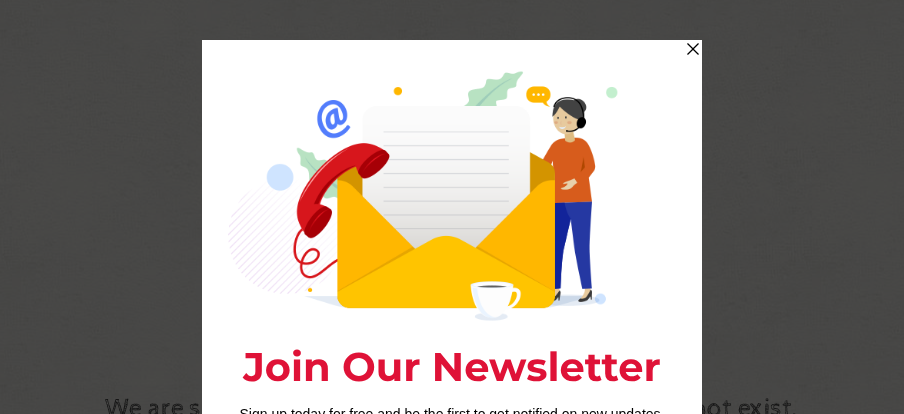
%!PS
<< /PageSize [904 414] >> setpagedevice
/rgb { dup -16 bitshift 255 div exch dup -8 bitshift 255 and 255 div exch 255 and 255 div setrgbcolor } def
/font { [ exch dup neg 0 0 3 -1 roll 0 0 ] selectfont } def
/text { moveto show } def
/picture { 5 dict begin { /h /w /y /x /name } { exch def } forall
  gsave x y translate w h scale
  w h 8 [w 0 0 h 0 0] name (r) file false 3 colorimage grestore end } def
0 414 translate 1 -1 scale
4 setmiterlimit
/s1 { /CabinSketch-Regular 26 font 16#151515 rgb } def
16#FFFFFF rgb
0 0 904 414 rectfill
(pic1.raw) 0 0 904 414 picture
s1
(not exist.) 692 416 text
(pic2.raw) 202 40 500 374 picture
(We are s) 105 416 text
showpage
